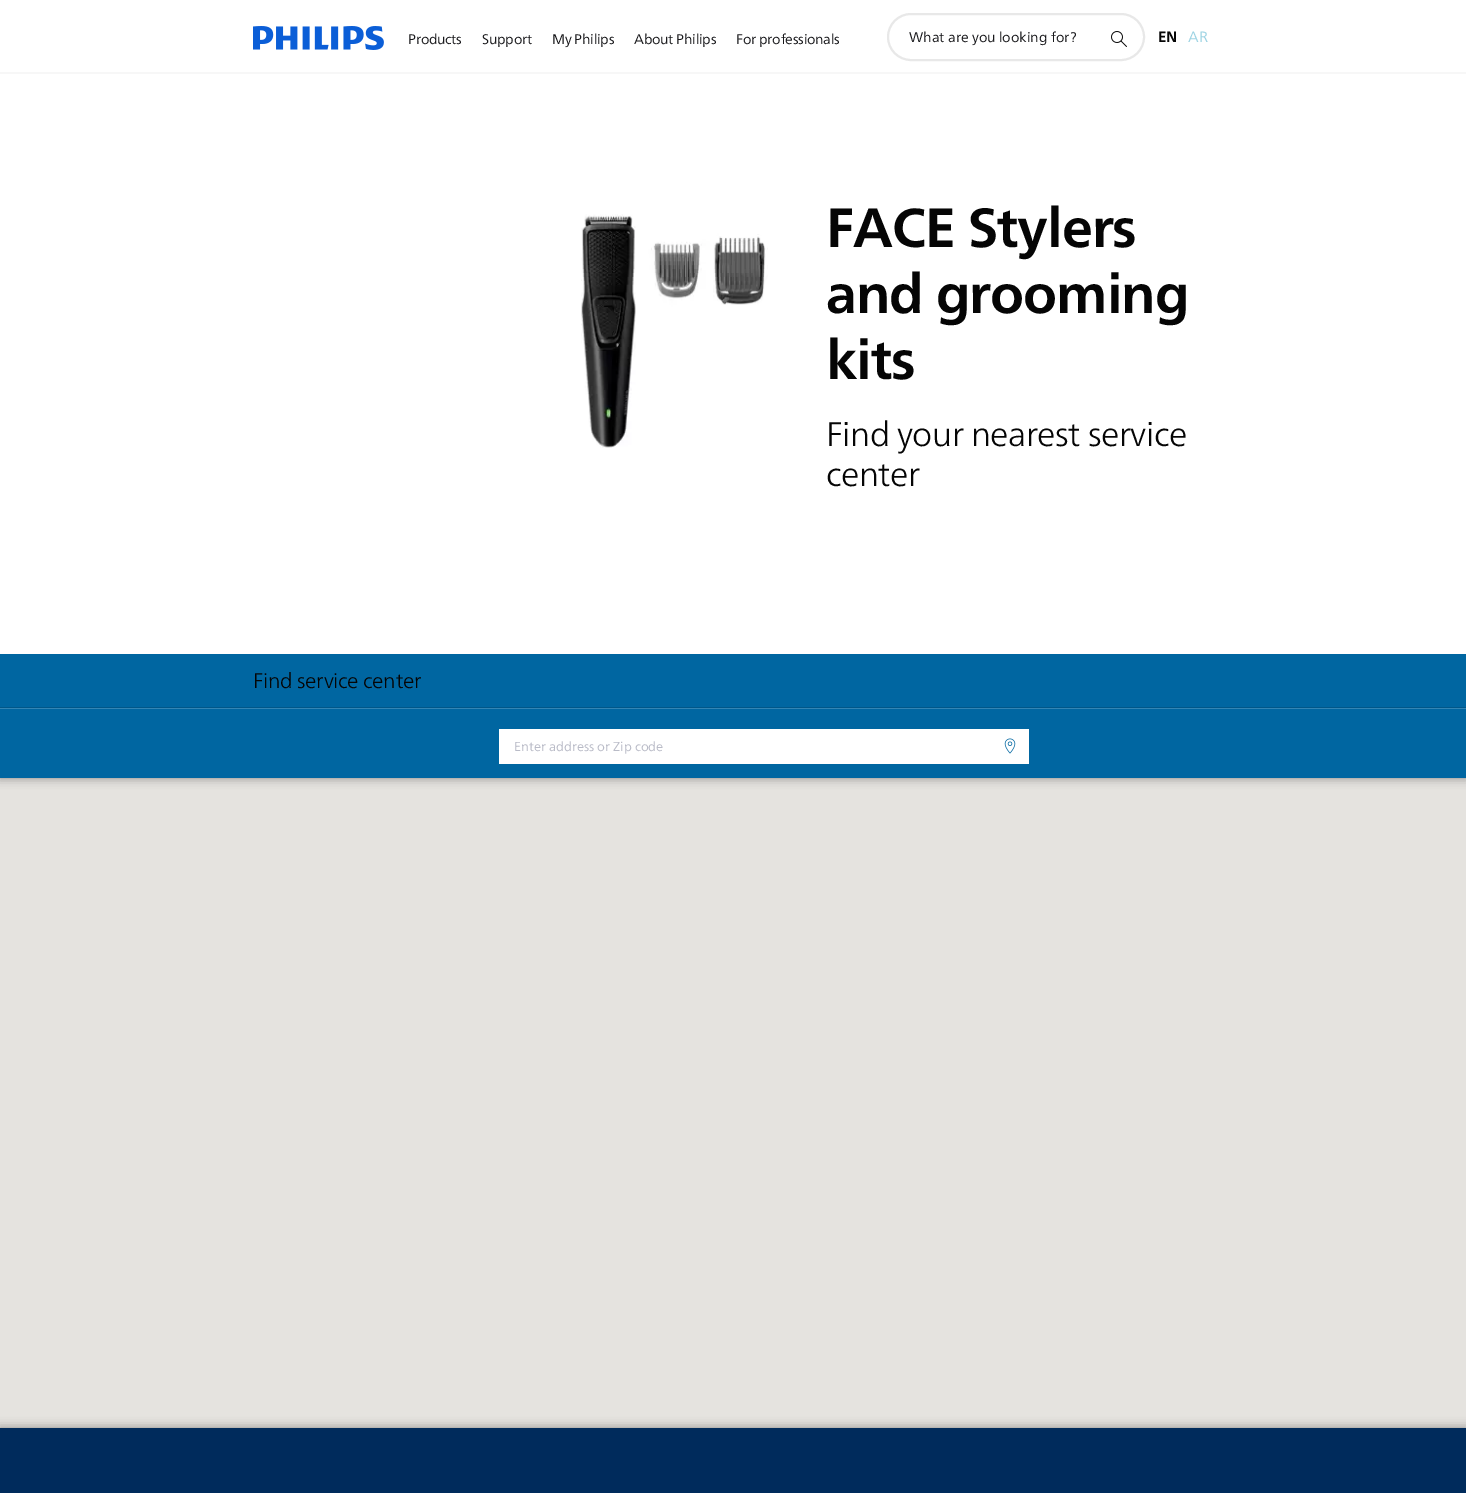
%!PS
<< /PageSize [1466 1493] /PageUsesTransparency true >> setpagedevice
/rgb { dup -16 bitshift 255 div exch dup -8 bitshift 255 and 255 div exch 255 and 255 div setrgbcolor } def
/font { [ exch dup neg 0 0 3 -1 roll 0 0 ] selectfont } def
/text { moveto show } def
/alpha { dup .setfillconstantalpha .setstrokeconstantalpha } def
/roundrect { 5 dict begin { /r /h /w /y /x } { exch def } forall
  x r add y moveto x w add y 2 copy h add r arct x w add y h add x 1 index r arct
  x y h add x y r arct x y 2 copy exch w add exch r arct closepath end } def
/shadow { 12 dict begin { /a /b /q /h /w /y /x } { exch def } forall gsave /was 0 def
  9 -2 -9 { dup b mul 4 div /e exch def 1 sub .425 mul 2.718 exch exp 1 add a .99 .min exch div /now exch def
    1 1 now sub 1 was sub div sub alpha /was now def
    w h .min e 2 mul add 0 gt { x e sub y e sub w e 2 mul add h e 2 mul add
      q e add b .6 mul add w h .min 2 div e add .min 0 .max roundrect fill } if } for grestore end } def
/picture { 5 dict begin { /h /w /y /x /name } { exch def } forall
  gsave x y translate w h scale
  w h 8 [w 0 0 h 0 0] name (r) file false 3 colorimage grestore end } def
0 .pushpdf14devicefilter
0 1493 translate 1 -1 scale
4 setmiterlimit
/s1 { /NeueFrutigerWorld-Regular 14 font 16#18181B rgb } def
/s2 { /NeueFrutigerWorld-Bold 15 font 16#050505 rgb } def
/s3 { /NeueFrutigerWorld-Regular 15 font 16#9DD3E3 rgb } def
/s4 { /NeueFrutigerWorld-Regular 13 font 16#B9BBC7 rgb } def
16#FFFFFF rgb
0 0 1466 1493 rectfill
(pic1.raw) 253 26 131 24 picture
/NeueFrutigerWorld-Regular 14 font
16#18181B rgb
408 44 moveto -0.25 0 (Products) ashow
482 44 moveto -0.25 0 (Support) ashow
552 44 moveto -0.25 0 (My Philips) ashow
634 44 moveto -0.25 0 (About Philips) ashow
736 44 moveto -0.25 0 (For professionals) ashow
16#F7F7F7 rgb
0 72 1466 2 rectfill
16#E8E8E8 rgb
2 setlinewidth
888 14 256 46 23 roundrect stroke
s1
(What are you looking for?) 909 42 text
(pic2.raw) 1111 31 16 16 picture
s2
(EN) 1158 42 text
s3
(AR) 1188 42 text
(pic3.raw) 581 214 187 234 picture
/NeueFrutigerWorld-Bold 55 font
16#050505 rgb
826 247 moveto -1 0 (FACE Stylers) ashow
826 313 moveto -1 0 (and grooming) ashow
826 379 moveto -1 0 (kits) ashow
/NeueFrutigerWorld-Light 34 font
826 446 moveto -0.5 0 (Find your nearest service) ashow
826 486 moveto -0.5 0 (center) ashow
16#0066A1 rgb
0 654 1466 124 rectfill
16#005789 rgb
0 707 1466 1 rectfill
/NeueFrutigerWorld-Light 21 font
16#050505 rgb
253 688 moveto -0.25 0 (Find service center) ashow
16#3385B4 rgb
0 708 1466 1 rectfill
16#FFFFFF rgb
499 729 530 35 rectfill
s4
(Enter address or Zip code) 514 751 text
(pic4.raw) 1004 738 12 16 picture
16#E5E3DF rgb
0 778 1466 650 rectfill
gsave
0 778 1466 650 rectclip
16#000000 rgb
0 773 1466 5 0 5 0.4 shadow
grestore
16#002B5C rgb
0 1428 1466 65 rectfill
gsave
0 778 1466 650 rectclip
16#000000 rgb
0 1428 1466 5 0 5 0.4 shadow
grestore
.poppdf14devicefilter showpage
